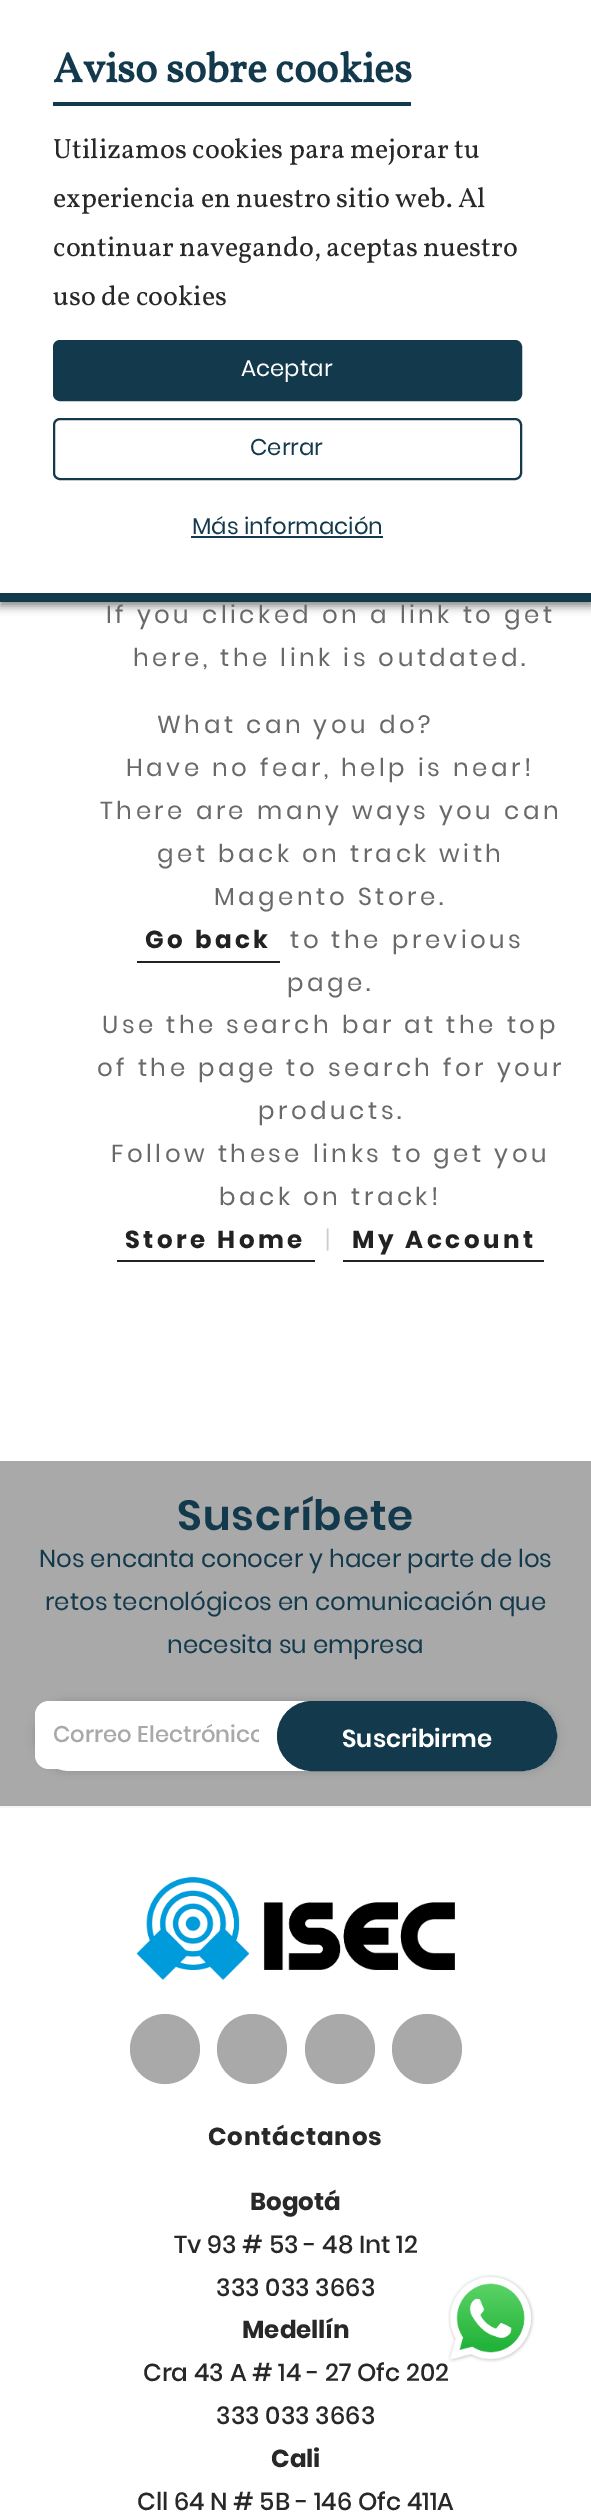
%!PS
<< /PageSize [591 2519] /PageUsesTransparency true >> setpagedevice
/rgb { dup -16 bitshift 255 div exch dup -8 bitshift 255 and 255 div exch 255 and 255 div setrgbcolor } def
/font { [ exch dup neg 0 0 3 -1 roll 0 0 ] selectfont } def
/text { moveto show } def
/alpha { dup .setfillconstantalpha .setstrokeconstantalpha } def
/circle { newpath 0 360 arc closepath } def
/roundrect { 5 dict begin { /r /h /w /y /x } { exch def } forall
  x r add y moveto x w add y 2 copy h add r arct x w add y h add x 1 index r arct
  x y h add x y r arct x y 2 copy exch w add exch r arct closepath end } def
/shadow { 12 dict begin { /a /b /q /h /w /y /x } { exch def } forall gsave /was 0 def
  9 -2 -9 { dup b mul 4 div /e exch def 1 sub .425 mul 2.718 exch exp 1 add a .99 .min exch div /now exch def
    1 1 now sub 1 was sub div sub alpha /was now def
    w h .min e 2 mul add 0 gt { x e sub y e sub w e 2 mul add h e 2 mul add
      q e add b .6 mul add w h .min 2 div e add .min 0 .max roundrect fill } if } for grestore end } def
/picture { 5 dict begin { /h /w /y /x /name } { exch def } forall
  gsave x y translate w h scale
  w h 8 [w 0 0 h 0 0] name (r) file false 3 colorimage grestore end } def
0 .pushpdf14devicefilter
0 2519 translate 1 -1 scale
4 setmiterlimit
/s1 { /Vollkorn-Bold 42 font 16#13394C rgb } def
/s2 { /Vollkorn-Regular 28 font 16#282828 rgb } def
/s3 { /Poppins-Regular 22.75 font 16#FFFFFF rgb } def
/s4 { /Poppins-Regular 22.75 font 16#13394C rgb } def
/s5 { /Poppins-Regular 24.5 font 16#13394C rgb } def
/s6 { /Poppins-Medium 22.75 font 16#A9A9A9 rgb } def
/s7 { /Poppins-SemiBold 24.5 font 16#FFFFFF rgb } def
/s8 { /Poppins-Bold 24.5 font 16#282828 rgb } def
/s9 { /Poppins-Medium 24.5 font 16#282828 rgb } def
16#FFFFFF rgb
0 0 591 2519 rectfill
16#000000 rgb
0 4 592 602 0 4.5 0.47 shadow
16#FFFFFF rgb
0 0 591 593 rectfill
16#13394C rgb
0 593 591 9 rectfill
s1
(Aviso sobre cookies) 53 82 text
53 102 358 4 rectfill
s2
(Utilizamos cookies para mejorar tu) 53 158 text
(experiencia en nuestro sitio web. Al) 53 207 text
(continuar navegando, aceptas nuestro) 53 256 text
(uso de cookies) 53 305 text
16#13394C rgb
54 341 467 59 6 roundrect gsave fill grestore
2 setlinewidth
stroke
s3
(Aceptar) 241 376 text
16#13394C rgb
54 419 467 60 6 roundrect stroke
(Cerrar) 250 455 text
(Más información) 192 534 text
191 536 192 2 rectfill
/Poppins-Regular 24.5 font
16#696969 rgb
106 623 moveto 3.5 0 (If you clicked on a link to get) ashow
133 666 moveto 3.5 0 (here, the link is outdated.) ashow
157 733 moveto 3.5 0 (What can you do?) ashow
126 776 moveto 3.5 0 (Have no fear, help is near!) ashow
100 819 moveto 3.5 0 (There are many ways you can) ashow
157 862 moveto 3.5 0 (get back on track with) ashow
214 905 moveto 3.5 0 (Magento Store.) ashow
/Poppins-Bold 24.5 font
16#222222 rgb
145 948 moveto 3.5 0 (Go back) ashow
137 961 143 2 rectfill
/Poppins-Regular 24.5 font
16#696969 rgb
290 948 moveto 3.5 0 (to the previous) ashow
287 991 moveto 3.5 0 (page.) ashow
102 1033 moveto 3.5 0 (Use the search bar at the top) ashow
97 1076 moveto 3.5 0 (of the page to search for your) ashow
258 1119 moveto 3.5 0 (products.) ashow
111 1162 moveto 3.5 0 (Follow these links to get you) ashow
219 1205 moveto 3.5 0 (back on track!) ashow
/Poppins-Bold 24.5 font
16#222222 rgb
125 1248 moveto 3.5 0 (Store Home) ashow
117 1260 198 2 rectfill
/Poppins-Light 24.5 font
16#CCCCCC rgb
325 1248 moveto 3.5 0 (|) ashow
/Poppins-Bold 24.5 font
16#222222 rgb
352 1248 moveto 3.5 0 (My Account) ashow
343 1260 201 2 rectfill
16#A9A9A9 rgb
0 1461 591 345 rectfill
/Poppins-SemiBold 42 font
16#13394C rgb
177 1530 moveto 0.9 0 (Suscríbete) ashow
s5
(Nos encanta conocer y hacer parte de los) 39 1567 text
(retos tecnológicos en comunicación que) 45 1610 text
(necesita su empresa) 167 1653 text
16#000000 rgb
35 1701 522 70 35 4.5 0.15 shadow
16#FFFFFF rgb
35 1701 522 70 35 roundrect fill
35 1701 242 68 14 roundrect fill
gsave
53 1719 206 35 rectclip
s6
(Correo Electrónico) 53 1742 text
grestore
16#13394C rgb
278 1702 278 68 34 roundrect gsave fill grestore
stroke
s7
(Suscribirme) 342 1747 text
16#F6F6F8 rgb
0 1806 591 2 rectfill
(pic1.raw) 136 1877 319 103 picture
16#A9A9A9 rgb
165 2049 35 circle fill
252 2049 35 circle fill
340 2049 35 circle fill
427 2049 35 circle fill
/Poppins-Bold 24.5 font
16#282828 rgb
208 2145 moveto 0.9 0 (Contáctanos) ashow
(Bogotá) 250 2210 text
s9
(Tv 93 # 53 - 48 Int 12) 174 2253 text
(333 033 3663) 216 2296 text
s8
(Medellín) 242 2338 text
s9
(Cra 43 A # 14 - 27 Ofc 202) 143 2381 text
(333 033 3663) 216 2424 text
s8
(Cali) 271 2467 text
s9
(Cll 64 N # 5B - 146 Ofc 411A) 137 2510 text
(pic2.raw) 448 2274 87 89 picture
.poppdf14devicefilter showpage
